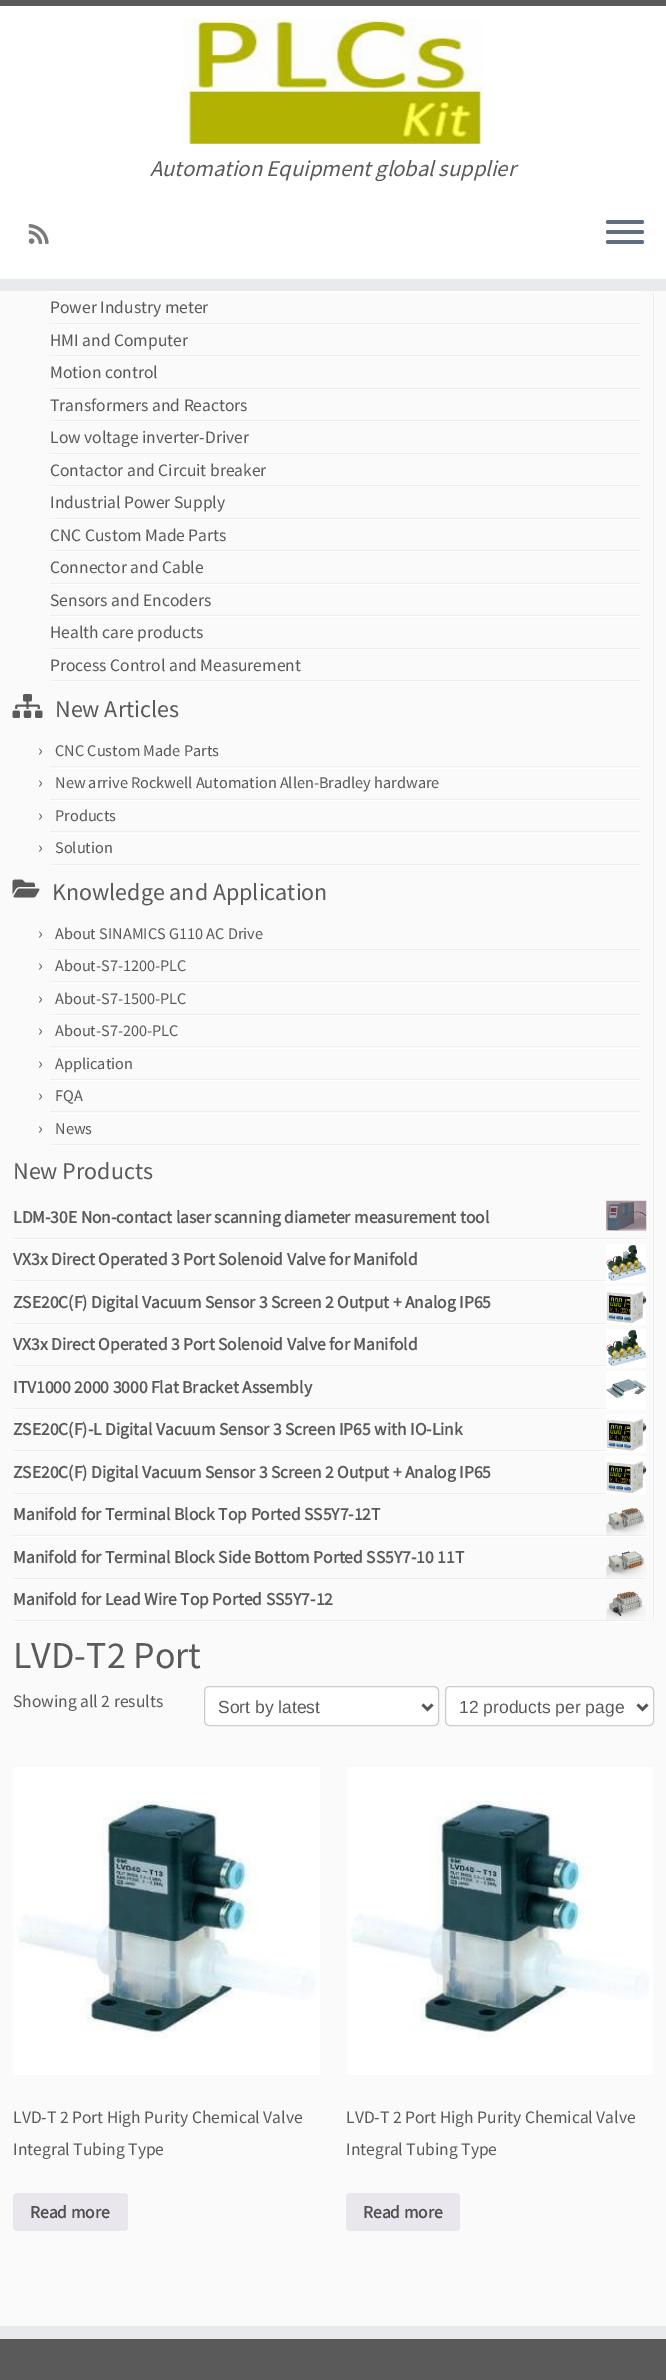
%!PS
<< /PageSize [666 2380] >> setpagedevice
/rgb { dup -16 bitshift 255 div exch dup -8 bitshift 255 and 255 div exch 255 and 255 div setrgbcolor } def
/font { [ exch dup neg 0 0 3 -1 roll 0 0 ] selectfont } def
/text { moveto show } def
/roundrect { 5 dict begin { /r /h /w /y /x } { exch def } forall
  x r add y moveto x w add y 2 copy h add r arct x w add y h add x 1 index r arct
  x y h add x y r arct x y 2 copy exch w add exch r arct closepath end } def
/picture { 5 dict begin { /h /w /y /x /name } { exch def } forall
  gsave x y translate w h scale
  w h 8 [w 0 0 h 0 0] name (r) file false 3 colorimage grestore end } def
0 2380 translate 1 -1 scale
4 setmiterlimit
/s1 { /SourceSansPro-Italic 22.5 font 16#5A5A5A rgb } def
/s2 { /SourceSansPro-Regular 17.5 font 16#5A5A5A rgb } def
/s3 { /SourceSansPro-Regular 24 font 16#5A5A5A rgb } def
/s4 { /SourceSansPro-Regular 16.25 font 16#5A5A5A rgb } def
/s5 { /SourceSansPro-Bold 17.5 font 16#5A5A5A rgb } def
/s6 { /SourceSansPro-Regular 38 font 16#5A5A5A rgb } def
/s7 { /LiberationSans-Regular 17.5 font 16#5A5A5A rgb } def
/s8 { /SourceSansPro-Bold 17.5 font 16#515151 rgb } def
16#FAFAFA rgb
0 0 666 2380 rectfill
16#FFFFFF rgb
0 6 666 273 rectfill
16#5A5A5A rgb
0 0 666 6 rectfill
16#E9EAEE rgb
0 279 666 12 rectfill
(pic1.raw) 182 18 302 126 picture
s1
(Automation Equipment global supplier) 150 176 text
(pic2.raw) 28 224 21 20 picture
16#5F6F81 rgb
606 220 38 4 2 roundrect fill
606 230 38 4 2 roundrect fill
606 240 38 4 2 roundrect fill
16#EEEEEE rgb
653 291 1 1330 rectfill
16#FFFFFF rgb
50 291 590 1 rectfill
16#EEEEEE rgb
50 323 590 1 rectfill
s2
(Power Industry meter) 50 313 text
16#FFFFFF rgb
50 324 590 1 rectfill
16#EEEEEE rgb
50 355 590 1 rectfill
s2
(HMI and Computer) 50 346 text
16#FFFFFF rgb
50 356 590 1 rectfill
16#EEEEEE rgb
50 388 590 1 rectfill
s2
(Motion control) 50 378 text
16#FFFFFF rgb
50 389 590 1 rectfill
16#EEEEEE rgb
50 420 590 1 rectfill
s2
(Transformers and Reactors) 50 411 text
16#FFFFFF rgb
50 421 590 1 rectfill
16#EEEEEE rgb
50 453 590 1 rectfill
s2
(Low voltage inverter-Driver) 50 443 text
16#FFFFFF rgb
50 454 590 1 rectfill
16#EEEEEE rgb
50 485 590 1 rectfill
s2
(Contactor and Circuit breaker) 50 476 text
16#FFFFFF rgb
50 486 590 1 rectfill
16#EEEEEE rgb
50 518 590 1 rectfill
s2
(Industrial Power Supply) 50 508 text
16#FFFFFF rgb
50 519 590 1 rectfill
16#EEEEEE rgb
50 550 590 1 rectfill
s2
(CNC Custom Made Parts) 50 541 text
16#FFFFFF rgb
50 551 590 1 rectfill
16#EEEEEE rgb
50 583 590 1 rectfill
s2
(Connector and Cable) 50 573 text
16#FFFFFF rgb
50 584 590 1 rectfill
16#EEEEEE rgb
50 615 590 1 rectfill
s2
(Sensors and Encoders) 50 606 text
16#FFFFFF rgb
50 616 590 1 rectfill
16#EEEEEE rgb
50 648 590 1 rectfill
s2
(Health care products) 50 638 text
16#FFFFFF rgb
50 649 590 1 rectfill
16#EEEEEE rgb
50 680 590 1 rectfill
s2
(Process Control and Measurement) 50 671 text
16#FFFFFF rgb
50 681 590 1 rectfill
654 291 1 1330 rectfill
(pic3.raw) 12 694 31 24 picture
s3
(New Articles) 55 717 text
16#EEEEEE rgb
50 766 590 1 rectfill
s2
(›) 38 756 text
s4
(CNC Custom Made Parts) 55 756 text
16#FFFFFF rgb
50 768 590 1 rectfill
16#EEEEEE rgb
50 799 590 1 rectfill
s2
(›) 38 788 text
s4
(New arrive Rockwell Automation Allen-Bradley hardware) 55 788 text
16#FFFFFF rgb
50 800 590 1 rectfill
16#EEEEEE rgb
50 831 590 1 rectfill
s2
(›) 38 821 text
s4
(Products) 55 821 text
16#FFFFFF rgb
50 833 590 1 rectfill
16#EEEEEE rgb
50 864 590 1 rectfill
s2
(›) 38 853 text
s4
(Solution) 55 853 text
16#FFFFFF rgb
50 865 590 1 rectfill
(pic4.raw) 12 879 28 19 picture
s3
(Knowledge and Application) 52 900 text
16#EEEEEE rgb
50 949 590 1 rectfill
s2
(›) 38 939 text
s4
(About SINAMICS G110 AC Drive) 55 939 text
16#FFFFFF rgb
50 950 590 1 rectfill
16#EEEEEE rgb
50 981 590 1 rectfill
s2
(›) 38 971 text
s4
(About-S7-1200-PLC) 55 971 text
16#FFFFFF rgb
50 983 590 1 rectfill
16#EEEEEE rgb
50 1014 590 1 rectfill
s2
(›) 38 1004 text
s4
(About-S7-1500-PLC) 55 1004 text
16#FFFFFF rgb
50 1015 590 1 rectfill
16#EEEEEE rgb
50 1046 590 1 rectfill
s2
(›) 38 1036 text
s4
(About-S7-200-PLC) 55 1036 text
16#FFFFFF rgb
50 1048 590 1 rectfill
16#EEEEEE rgb
50 1079 590 1 rectfill
s2
(›) 38 1069 text
s4
(Application) 55 1069 text
16#FFFFFF rgb
50 1080 590 1 rectfill
16#EEEEEE rgb
50 1111 590 1 rectfill
s2
(›) 38 1101 text
s4
(FQA) 55 1101 text
16#FFFFFF rgb
50 1113 590 1 rectfill
16#EEEEEE rgb
50 1144 590 1 rectfill
s2
(›) 38 1134 text
s4
(News) 55 1134 text
16#FFFFFF rgb
50 1145 590 1 rectfill
s3
(New Products) 13 1179 text
16#EEEEEE rgb
13 1238 633 1 rectfill
s5
(LDM-30E Non-contact laser scanning diameter measurement tool) 13 1223 text
(pic5.raw) 606 1200 41 31 picture
16#FFFFFF rgb
13 1239 633 1 rectfill
16#EEEEEE rgb
13 1280 594 1 rectfill
s5
(VX3x Direct Operated 3 Port Solenoid Valve for Manifold) 13 1265 text
(pic6.raw) 606 1244 40 39 picture
16#FFFFFF rgb
13 1281 600 1 rectfill
16#EEEEEE rgb
13 1323 594 1 rectfill
s5
(ZSE20C\(F\) Digital Vacuum Sensor 3 Screen 2 Output + Analog IP65) 13 1308 text
(pic7.raw) 606 1286 41 39 picture
16#FFFFFF rgb
13 1324 593 1 rectfill
16#EEEEEE rgb
13 1365 594 1 rectfill
s5
(VX3x Direct Operated 3 Port Solenoid Valve for Manifold) 13 1350 text
(pic6.raw) 606 1329 40 39 picture
16#FFFFFF rgb
13 1366 600 1 rectfill
16#EEEEEE rgb
13 1408 594 1 rectfill
s5
(ITV1000 2000 3000 Flat Bracket Assembly) 13 1393 text
(pic8.raw) 606 1371 41 39 picture
16#FFFFFF rgb
13 1409 593 1 rectfill
16#EEEEEE rgb
13 1450 594 1 rectfill
s5
(ZSE20C\(F\)-L Digital Vacuum Sensor 3 Screen IP65 with IO-Link) 13 1435 text
(pic9.raw) 606 1414 41 39 picture
16#FFFFFF rgb
13 1451 593 1 rectfill
16#EEEEEE rgb
13 1493 594 1 rectfill
s5
(ZSE20C\(F\) Digital Vacuum Sensor 3 Screen 2 Output + Analog IP65) 13 1478 text
(pic7.raw) 606 1456 41 39 picture
16#FFFFFF rgb
13 1494 593 1 rectfill
16#EEEEEE rgb
13 1535 633 1 rectfill
s5
(Manifold for Terminal Block Top Ported SS5Y7-12T) 13 1520 text
(pic10.raw) 606 1508 40 30 picture
16#FFFFFF rgb
13 1536 633 1 rectfill
16#EEEEEE rgb
13 1578 633 1 rectfill
s5
(Manifold for Terminal Block Side Bottom Ported SS5Y7-10 11T) 13 1563 text
(pic11.raw) 606 1551 40 28 picture
16#FFFFFF rgb
13 1579 633 1 rectfill
16#EEEEEE rgb
13 1620 633 1 rectfill
s5
(Manifold for Lead Wire Top Ported SS5Y7-12) 13 1605 text
(pic12.raw) 606 1591 40 30 picture
16#FFFFFF rgb
13 1621 633 1 rectfill
s6
(LVD-T2 Port) 13 1668 text
s2
(Showing all 2 results) 13 1707 text
16#FFFFFF rgb
204.5 1686.5 234 39 4.5 roundrect gsave fill grestore
16#CCCCCC rgb
stroke
16#555555 rgb
2.5 setlinewidth
422.5 1704.5 moveto 427.5 1709.5 lineto 432.5 1704.5 lineto stroke
s7
(Sort by latest) 218 1713 text
16#FFFFFF rgb
445.5 1686.5 208 39 4.5 roundrect gsave fill grestore
16#CCCCCC rgb
1 setlinewidth
stroke
16#555555 rgb
2.5 setlinewidth
637.5 1704.5 moveto 642.5 1709.5 lineto 647.5 1704.5 lineto stroke
s7
(12 products per page) 459 1713 text
(pic13.raw) 13 1767 307 308 picture
s2
(LVD-T 2 Port High Purity Chemical Valve) 13 2123 text
(Integral Tubing Type) 13 2155 text
16#E9E6ED rgb
13 2193 115 38 4 roundrect fill
s8
(Read more) 30 2218 text
(pic14.raw) 347 1767 306 308 picture
s2
(LVD-T 2 Port High Purity Chemical Valve) 346 2123 text
(Integral Tubing Type) 346 2155 text
16#E9E6ED rgb
346 2193 114 38 4 roundrect fill
s8
(Read more) 363 2218 text
16#5A5A5A rgb
0 2339 666 41 rectfill
16#E9EAEE rgb
0 2326 666 13 rectfill
showpage
